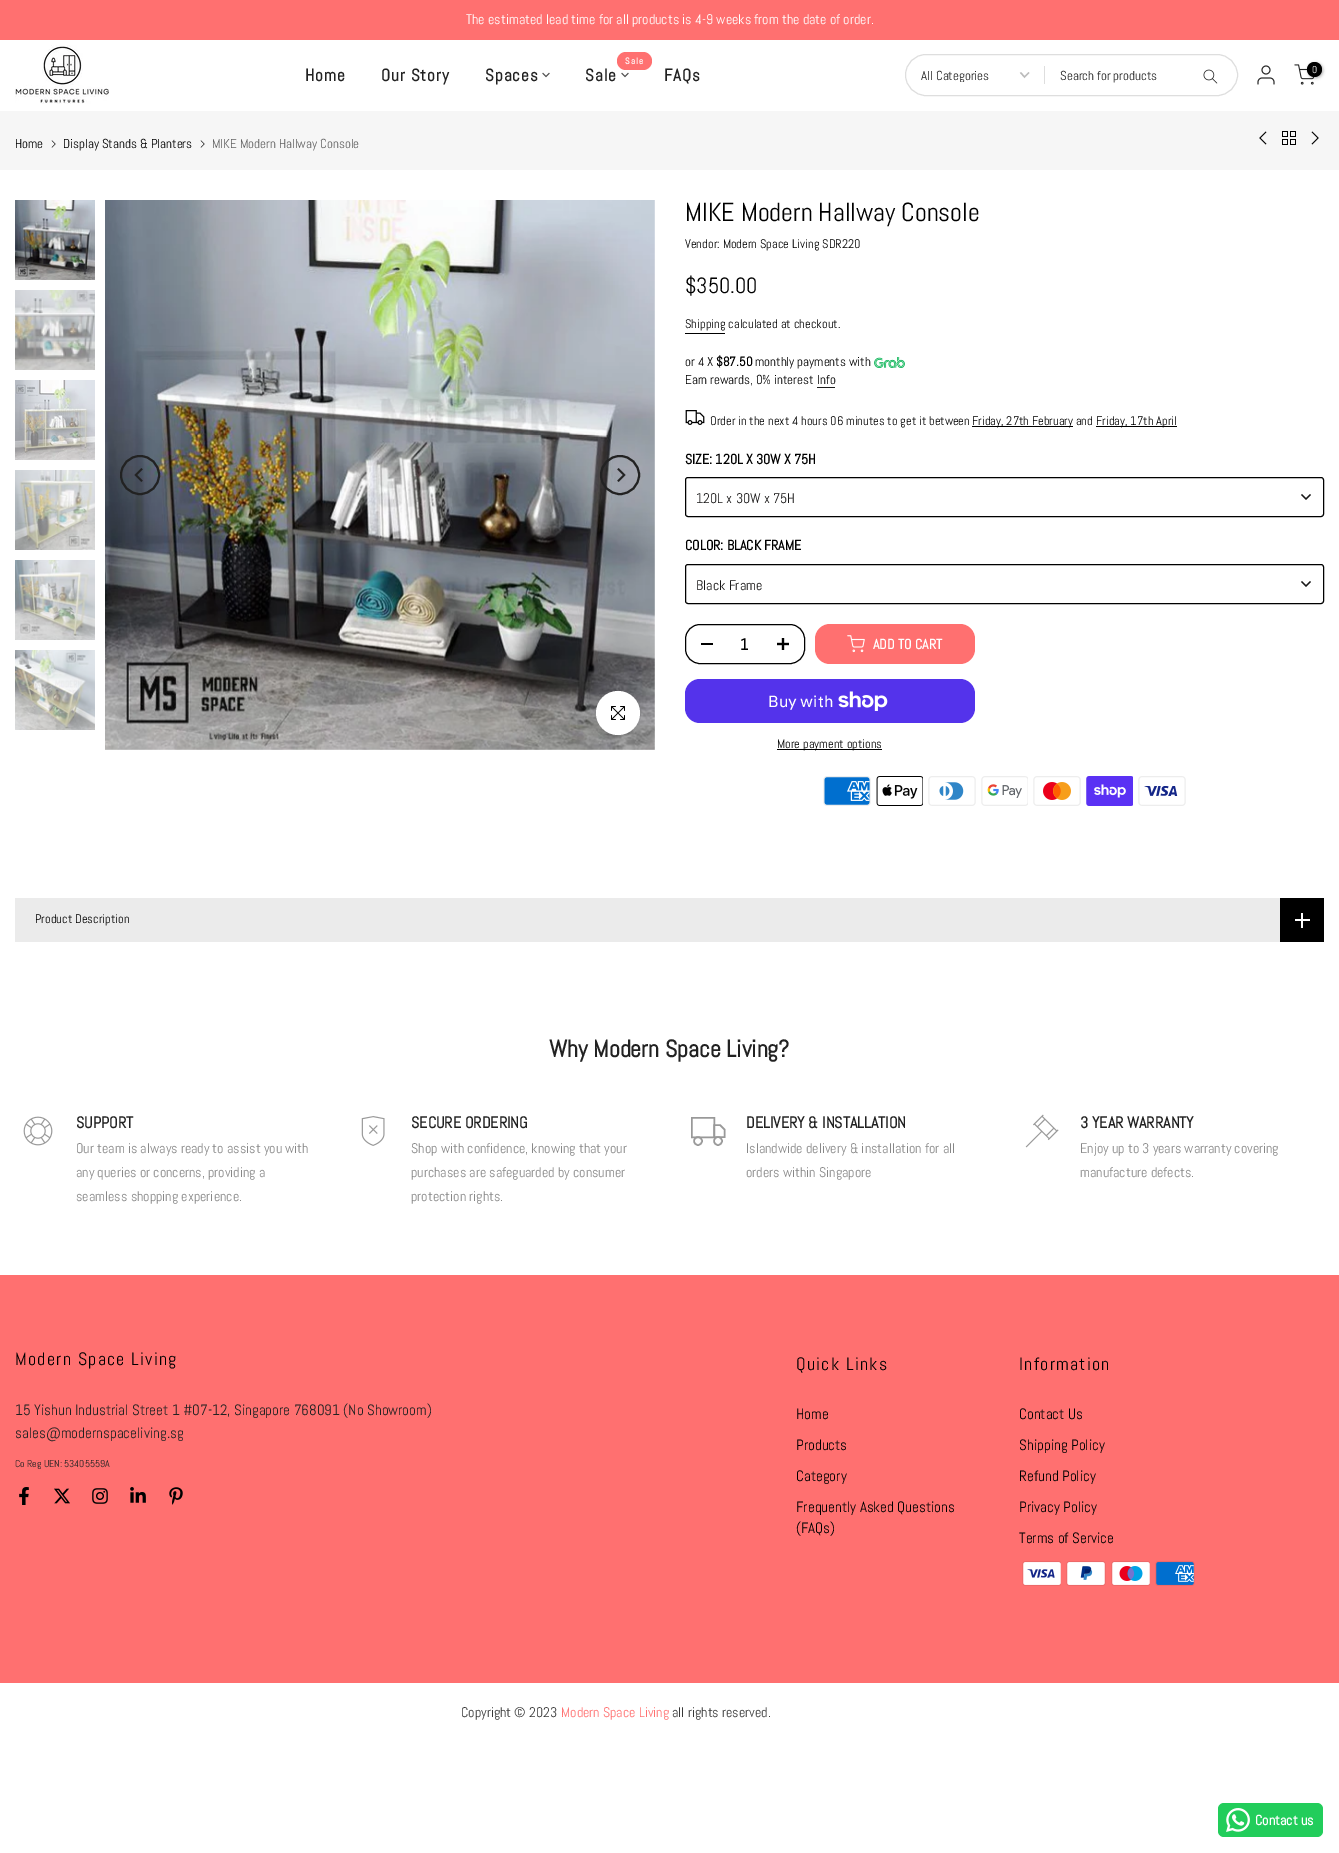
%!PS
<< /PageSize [1339 1853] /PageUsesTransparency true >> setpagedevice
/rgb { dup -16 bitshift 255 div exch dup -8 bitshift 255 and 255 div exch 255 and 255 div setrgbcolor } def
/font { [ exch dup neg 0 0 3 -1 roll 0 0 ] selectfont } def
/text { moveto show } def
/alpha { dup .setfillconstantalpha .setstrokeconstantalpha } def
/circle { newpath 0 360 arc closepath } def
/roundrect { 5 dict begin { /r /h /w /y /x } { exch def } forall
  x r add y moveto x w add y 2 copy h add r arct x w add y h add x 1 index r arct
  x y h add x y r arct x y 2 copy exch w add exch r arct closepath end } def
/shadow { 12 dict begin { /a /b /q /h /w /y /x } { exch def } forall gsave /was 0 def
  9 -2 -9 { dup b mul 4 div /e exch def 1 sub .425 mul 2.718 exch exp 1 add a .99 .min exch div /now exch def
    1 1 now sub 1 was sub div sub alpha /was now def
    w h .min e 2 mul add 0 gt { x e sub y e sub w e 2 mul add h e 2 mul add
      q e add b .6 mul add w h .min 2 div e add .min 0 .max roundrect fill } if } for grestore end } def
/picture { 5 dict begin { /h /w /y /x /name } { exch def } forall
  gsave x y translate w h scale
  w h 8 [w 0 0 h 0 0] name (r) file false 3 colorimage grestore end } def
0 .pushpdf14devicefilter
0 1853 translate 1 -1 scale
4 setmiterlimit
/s1 { /Abel-Regular 14 font 16#FFFFFF rgb } def
/s2 { /Abel-Regular 13 font 16#222222 rgb } def
/s3 { /Abel-Regular 10 font 16#FFFFFF rgb } def
/s4 { /Abel-Regular 13 font 16#000000 rgb } def
/s5 { /Abel-Regular 13 font 16#626262 rgb } def
/s6 { /Abel-Regular 26 font 16#000000 rgb } def
/s7 { /Abel-Regular 12.5 font 16#000000 rgb } def
/s8 { /Abel-Regular 22 font 16#000000 rgb } def
/s9 { /Abel-Bold 13 font 16#000000 rgb } def
/s10 { /Abel-Bold 14 font 16#000000 rgb } def
/s11 { /Abel-Regular 14 font 16#181717 rgb } def
/s12 { /Abel-Bold 16 font 16#000000 rgb } def
/s13 { /Abel-Bold 14 font 16#FFFFFF rgb } def
/s14 { /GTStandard-Regular 16 font 16#FFFFFF rgb } def
/s15 { /Abel-Bold 24 font 16#222222 rgb } def
/s16 { /Abel-Bold 16 font 16#222222 rgb } def
/s17 { /Abel-Regular 14 font 16#878787 rgb } def
/s18 { /Abel-Regular 15 font 16#222222 rgb } def
/s19 { /Abel-Regular 10 font 16#222222 rgb } def
/s20 { /Abel-Regular 15 font 16#000000 rgb } def
/s21 { /Abel-Regular 14 font 16#383838 rgb } def
/s22 { /Abel-Regular 14 font 16#FF7070 rgb } def
16#FFFFFF rgb
0 0 1339 1853 rectfill
16#FF7070 rgb
0 0 1339 40 rectfill
s1
(The estimated lead time for all products is 4-9 weeks from the date of order.) 466 24 text
(pic1.raw) 15 45 94 59 picture
/Abel-Bold 17 font
16#222222 rgb
305 81 moveto 1 0 (Home) ashow
381 81 moveto 1 0 (Our Story) ashow
485 81 moveto 1 0 (Spaces) ashow
16#4E4E4E rgb
0.8 setlinewidth
2 setlinecap
549 73.5 moveto 546 76.5 lineto 543 73.5 lineto stroke
16#FF7070 rgb
617 52 35 18 9 roundrect fill
/Abel-Bold 9 font
16#FFFFFF rgb
625 64 moveto 1 0 (Sale) ashow
/Abel-Bold 17 font
16#222222 rgb
585 81 moveto 1 0 (Sale) ashow
16#4E4E4E rgb
628 73.5 moveto 625 76.5 lineto 622 73.5 lineto stroke
16#222222 rgb
664 81 moveto 1 0 (FAQs) ashow
16#DEDEDE rgb
1 setlinewidth
0 setlinecap
905.5 54.5 332 41 20.5 roundrect stroke
16#BBBBBB rgb
1.4 setlinewidth
1020.5 72.5 moveto 1024.5 77 lineto 1029 72.5 lineto stroke
gsave
921 69 93 13 rectclip
s2
(All Categories) 921 80 text
grestore
16#DEDEDE rgb
1044 66 1 18 rectfill
s2
(Search for products) 1060 80 text
(pic2.raw) 1203 69 15 15 picture
(pic3.raw) 1257 65 18 20 picture
(pic4.raw) 1294 64 21 21 picture
16#000000 rgb
1308 63 15 15 7.5 1.5 0.3 shadow
1314.5 69.5 7.5 circle fill
s3
(0) 1312 73 text
16#F6F6F6 rgb
0 111 1339 59 rectfill
s4
(Home) 15 148 text
(pic5.raw) 51 140 5 8 picture
(Display Stands & Planters) 63 148 text
(pic5.raw) 200 140 5 8 picture
s5
(MIKE Modern Hallway Console) 212 148 text
(pic6.raw) 1259 131 8 14 picture
(pic7.raw) 1282 131 14 14 picture
(pic8.raw) 1311 131 8 14 picture
(pic9.raw) 15 200 80 80 picture
(pic10.raw) 15 290 80 80 picture
(pic11.raw) 15 380 80 80 picture
(pic12.raw) 15 470 80 80 picture
(pic13.raw) 15 560 80 80 picture
(pic14.raw) 15 650 80 80 picture
(pic15.raw) 105 200 550 550 picture
16#222222 rgb
2 setlinewidth
140 475 19 circle stroke
(pic16.raw) 134 468 9 14 picture
620 475 19 circle stroke
(pic17.raw) 617 468 9 14 picture
16#000000 rgb
596 691 44 44 22 2.5 0.09 shadow
16#FFFFFF rgb
618 713 22 circle fill
(pic18.raw) 611 706 14 14 picture
s6
(MIKE Modern Hallway Console) 685 221 text
s7
(Vendor: Modern Space Living SDR220) 685 248 text
s8
($350.00) 685 293 text
s7
(Shipping calculated at checkout.) 685 328 text
685 333 40 1 rectfill
s4
(or 4 X) 685 366 text
s9
($87.50) 716 366 text
s4
(monthly payments with) 755 366 text
(pic19.raw) 874 357 31 11 picture
(Earn rewards, 0% interest) 685 384 text
(Info) 817 384 text
16#1A1A1A rgb
817 387 18 1 rectfill
(pic20.raw) 685 410 20 15 picture
s7
(Order in the next 4 hours 06 minutes to get it between) 710 425 text
972 426 101 1 rectfill
(Friday, 27th February and) 972 425 text
1096 426 81 1 rectfill
(Friday, 17th April) 1096 425 text
s10
(SIZE: 120L X 30W X 75H) 685 464 text
1 setlinewidth
685.5 477.5 638 39 2.5 roundrect stroke
s11
(120L x 30W x 75H) 696 503 text
1.1 setlinewidth
2 setlinecap
1310 495 moveto 1306 499 lineto 1302 495 lineto stroke
s10
(COLOR: BLACK FRAME) 685 550 text
1 setlinewidth
0 setlinecap
685.5 564.5 638 39 2.5 roundrect stroke
s11
(Black Frame) 696 590 text
1.1 setlinewidth
2 setlinecap
1310 582 moveto 1306 586 lineto 1302 582 lineto stroke
16#000000 rgb
1 setlinewidth
0 setlinecap
685.5 624.5 119 39 14.5 roundrect stroke
701 643 12 2 rectfill
s12
(1) 740 650 text
(pic21.raw) 777 638 12 12 picture
16#FF7070 rgb
815 624 160 40 15 roundrect fill
(pic22.raw) 847 635 18 18 picture
s13
(ADD TO CART) 873 649 text
16#5433EB rgb
685 679 290 44 15 roundrect fill
s14
(Buy with) 768 707 text
(pic23.raw) 838 691 50 20 picture
16#000000 rgb
777 749 105 1 rectfill
s7
(More payment options) 777 748 text
(pic24.raw) 823 776 48 30 picture
(pic25.raw) 876 776 47 30 picture
(pic26.raw) 928 776 48 30 picture
(pic27.raw) 981 776 47 30 picture
(pic28.raw) 1033 776 48 30 picture
(pic29.raw) 1086 776 47 30 picture
(pic30.raw) 1138 776 48 30 picture
16#EBEBEB rgb
15 898 1265 44 rectfill
s7
(Product Description) 35 923 text
1280 898 44 44 rectfill
16#FFFFFF rgb
1301 913 2 15 rectfill
1295 919 15 2 rectfill
s15
(Why Modern Space Living?) 549 1057 text
(pic31.raw) 23 1116 30 30 picture
s16
(SUPPORT) 76 1128 text
s17
(Our team is always ready to assist you with) 76 1153 text
(any queries or concerns, providing a) 76 1177 text
(seamless shopping experience.) 76 1201 text
(pic32.raw) 361 1116 24 30 picture
s16
(SECURE ORDERING) 411 1128 text
s17
(Shop with confidence, knowing that your) 411 1153 text
(purchases are safeguarded by consumer) 411 1177 text
(protection rights.) 411 1201 text
16#999999 rgb
1.5 setlinewidth
691.75 1117.75 22.5 19.5 rectstroke
714 1125 moveto 720 1125 lineto 724.5 1129.5 lineto 724.5 1137 lineto 714 1137 lineto closepath stroke
698 1141 4 circle stroke
718 1141 4 circle stroke
s16
(DELIVERY & INSTALLATION) 746 1128 text
s17
(Islandwide delivery & installation for all) 746 1153 text
(orders within Singapore) 746 1177 text
(pic33.raw) 1025 1114 34 34 picture
s16
(3 YEAR WARRANTY) 1080 1128 text
s17
(Enjoy up to 3 years warranty covering) 1080 1153 text
(manufacture defects.) 1080 1177 text
16#FF7070 rgb
0 1275 1339 408 rectfill
/Abel-Regular 18 font
16#000000 rgb
15 1365 moveto 1.25 0 (Modern Space Living) ashow
s18
(15 Yishun Industrial Street 1 #07-12, Singapore 768091 \(No Showroom\)) 15 1415 text
(sales@modernspaceliving.sg) 15 1438 text
s19
(Co Reg UEN: 53405559A) 15 1467 text
(pic34.raw) 19 1487 10 18 picture
(pic35.raw) 54 1488 16 16 picture
(pic36.raw) 92 1488 16 16 picture
(pic37.raw) 130 1487 16 16 picture
(pic38.raw) 169 1487 14 18 picture
/Abel-Regular 18 font
16#000000 rgb
796 1370 moveto 1.25 0 (Quick Links) ashow
s20
(Home) 796 1419 text
(Products) 796 1450 text
(Category) 796 1481 text
(Frequently Asked Questions) 796 1512 text
(\(FAQs\)) 796 1533 text
/Abel-Regular 18 font
1019 1370 moveto 1.25 0 (Information) ashow
s20
(Contact Us) 1019 1419 text
(Shipping Policy) 1019 1450 text
(Refund Policy) 1019 1481 text
(Privacy Policy) 1019 1512 text
(Terms of Service) 1019 1543 text
(pic39.raw) 1022 1561 39 25 picture
(pic40.raw) 1066 1561 40 25 picture
(pic41.raw) 1111 1561 39 25 picture
(pic42.raw) 1155 1561 40 25 picture
s21
(Copyright © 2023) 461 1717 text
s22
(Modern Space Living) 561 1717 text
s21
(all rights reserved.) 672 1717 text
16#22CD5B rgb
1218 1803 105 34 6 roundrect fill
(pic43.raw) 1226 1808 24 24 picture
s13
(Contact us) 1255 1825 text
.poppdf14devicefilter showpage
